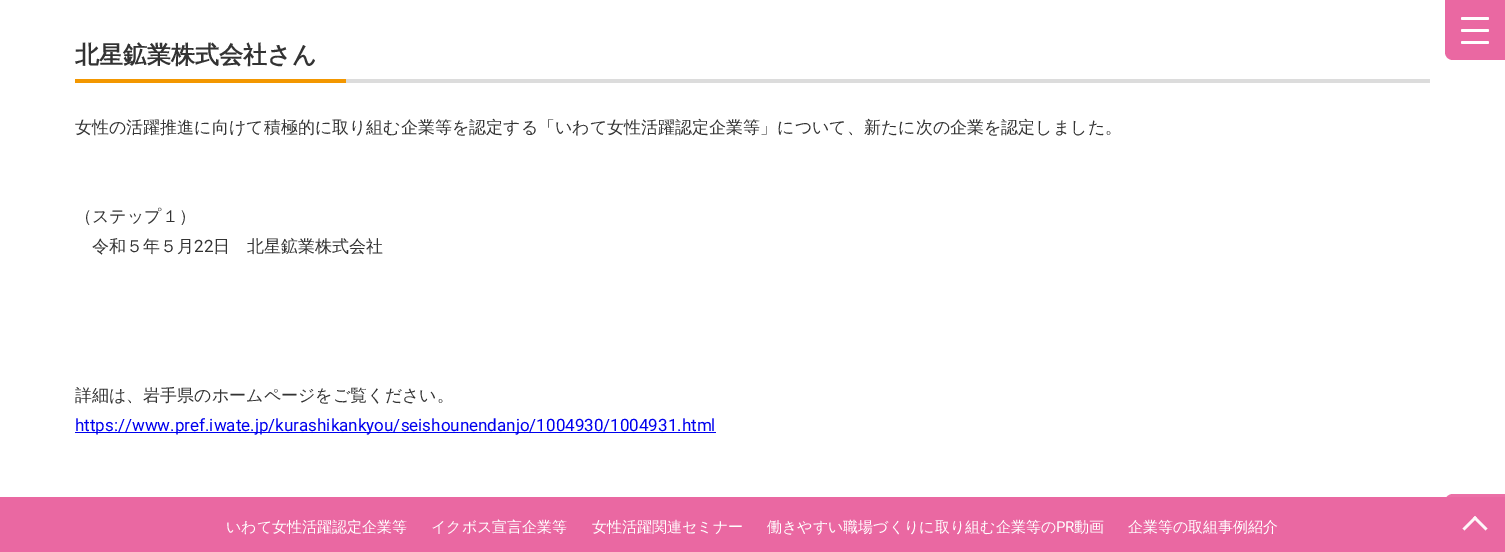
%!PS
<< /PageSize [1505 552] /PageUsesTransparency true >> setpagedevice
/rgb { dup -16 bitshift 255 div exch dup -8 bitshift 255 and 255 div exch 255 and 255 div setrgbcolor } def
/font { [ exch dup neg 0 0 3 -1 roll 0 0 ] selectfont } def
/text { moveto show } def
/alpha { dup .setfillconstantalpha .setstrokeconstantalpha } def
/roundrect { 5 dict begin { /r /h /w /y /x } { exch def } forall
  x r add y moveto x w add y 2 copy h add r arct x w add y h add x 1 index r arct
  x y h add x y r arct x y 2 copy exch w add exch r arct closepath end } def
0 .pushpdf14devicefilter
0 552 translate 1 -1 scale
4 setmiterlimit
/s1 { /WenQuanYiZenHei-Bold 24 font 16#333333 rgb } def
/s2 { /WenQuanYiZenHei-Medium 17 font 16#333333 rgb } def
/s3 { /Roboto-Regular 17 font 16#333333 rgb } def
/s4 { /Roboto-Regular 17 font 16#0000EE rgb } def
/s5 { /WenQuanYiZenHei-Medium 15 font 16#FFFFFF rgb } def
/s6 { /Roboto-Regular 15 font 16#FFFFFF rgb } def
16#FFFFFF rgb
0 0 1505 552 rectfill
16#EA68A2 rgb
1445 0 moveto 1505 0 lineto 1505 60 lineto 1453 60 lineto 1448.5 60 1445 56.5 1445 52 curveto closepath fill
16#FFFFFF rgb
1461 17 28 3 1.5 roundrect fill
1461 29 28 3 1.5 roundrect fill
1461 41 28 3 1.5 roundrect fill
16#DCDCDC rgb
346 79 1084 4 rectfill
s1
(北星鉱業株式会社さん) 75 63 text
16#F39700 rgb
75 79 271 4 rectfill
s2
(女性の活躍推進に向けて積極的に取り組む企業等を認定する「いわて女性活躍認定企業等」について、新たに次の企業を認定しました。) 75 133 text
(（ステップ１）) 75 222 text
(令和５年５月) 92 252 text
s3
(22) 194 252 text
s2
(日　北星鉱業株式会社) 213 252 text
(詳細は、岩手県のホームページをご覧ください。) 75 401 text
16#0000EE rgb
75 432 641 1 rectfill
s4
(https://www.pref.iwate.jp/kurashikankyou/seishounendanjo/1004930/1004931.html) 75 431 text
16#EA68A2 rgb
0 497 1505 55 rectfill
s5
(いわて女性活躍認定企業等) 226 532 text
(イクボス宣言企業等) 431 532 text
(女性活躍関連セミナー) 592 532 text
(働きやすい職場づくりに取り組む企業等の) 767 532 text
s6
(PR) 1056 532 text
s5
(動画) 1074 532 text
(企業等の取組事例紹介) 1128 532 text
0.95 alpha
16#EA68A2 rgb
1453 494 moveto 1505 494 lineto 1505 552 lineto 1445 552 lineto 1445 502 lineto 1445 497.5 1448.5 494 1453 494 curveto closepath fill
1 alpha
16#FEF7FA rgb
1475 516 moveto 1487.5 528.5 lineto 1485.5 530.5 lineto 1473 518 lineto closepath fill
1475 516 moveto 1477 518 lineto 1464.5 530.5 lineto 1462.5 528.5 lineto closepath fill
.poppdf14devicefilter showpage
